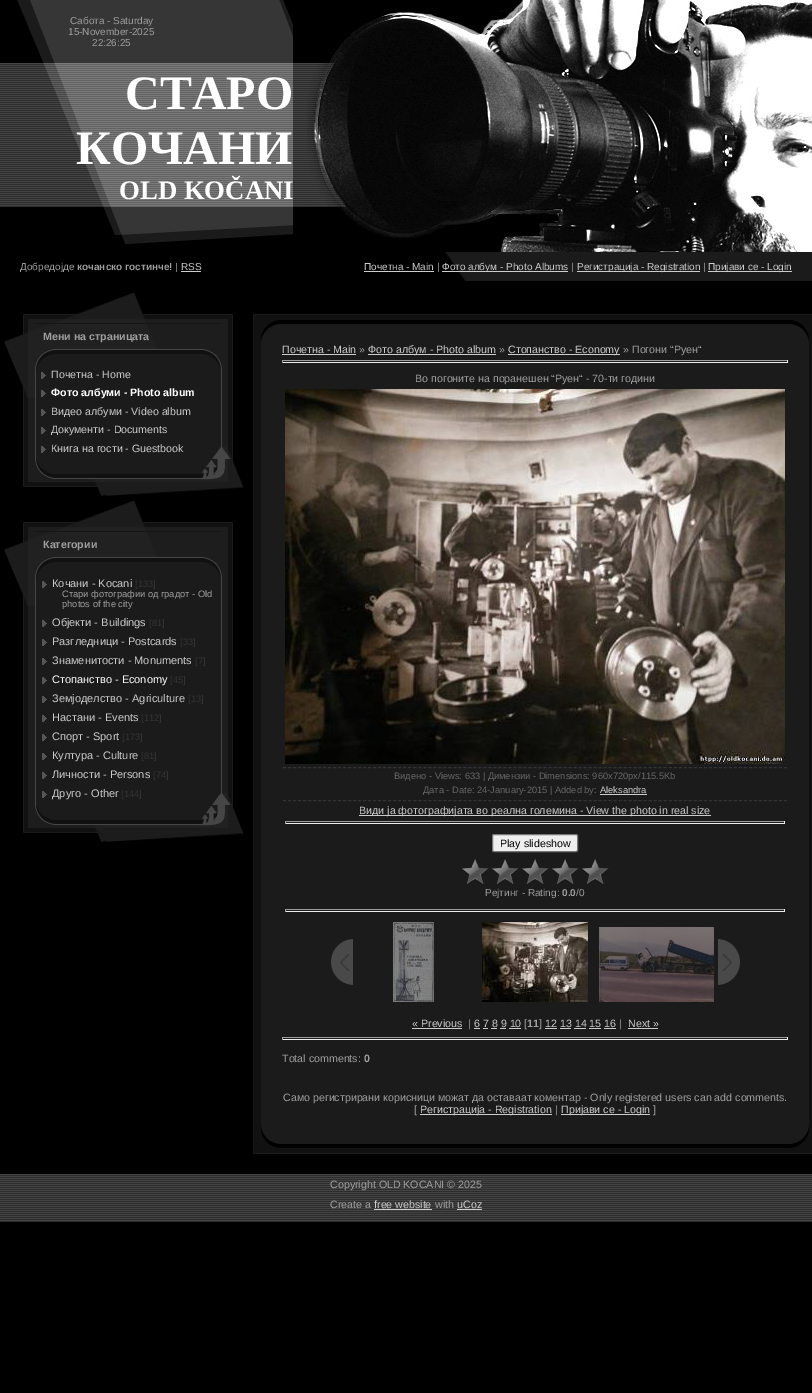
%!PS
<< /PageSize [812 1393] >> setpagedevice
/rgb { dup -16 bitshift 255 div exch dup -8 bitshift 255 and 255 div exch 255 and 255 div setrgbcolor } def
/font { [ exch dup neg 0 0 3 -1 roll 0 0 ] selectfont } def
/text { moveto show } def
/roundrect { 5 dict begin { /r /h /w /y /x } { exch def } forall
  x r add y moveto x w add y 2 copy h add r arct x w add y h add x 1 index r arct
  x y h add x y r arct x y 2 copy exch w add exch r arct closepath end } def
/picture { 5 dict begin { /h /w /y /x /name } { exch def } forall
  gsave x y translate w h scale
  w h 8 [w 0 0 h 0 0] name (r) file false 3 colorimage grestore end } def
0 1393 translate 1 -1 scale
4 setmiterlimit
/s1 { /LiberationSans-Regular 10 font 16#9F9F9F rgb } def
/s2 { /LiberationSerif-Bold 48 font 16#FFFFFF rgb } def
/s3 { /LiberationSerif-Bold 26.75 font 16#FFFFFF rgb } def
/s4 { /LiberationSans-Bold 10 font 16#9F9F9F rgb } def
/s5 { /LiberationSans-Regular 10 font 16#CCCCCC rgb } def
/s6 { /LiberationSans-Bold 10.65 font 16#9F9F9F rgb } def
/s7 { /LiberationSans-Regular 10.65 font 16#CCCCCC rgb } def
/s8 { /LiberationSans-Bold 10.65 font 16#FFFFFF rgb } def
/s9 { /LiberationSans-Regular 11 font 16#CCCCCC rgb } def
/s10 { /LiberationSans-Regular 9.3 font 16#333333 rgb } def
/s11 { /LiberationSans-Regular 9.3 font 16#9F9F9F rgb } def
/s12 { /LiberationSans-Regular 11 font 16#FFFFFF rgb } def
/s13 { /LiberationSans-Regular 10.65 font 16#9F9F9F rgb } def
/s14 { /LiberationSans-Regular 9.3 font 16#666666 rgb } def
/s15 { /LiberationSans-Regular 9.3 font 16#CCCCCC rgb } def
/s16 { /LiberationSans-Regular 10.65 font 16#000000 rgb } def
16#000000 rgb
0 0 812 1393 rectfill
(pic1.raw) 0 63 307 144 picture
(pic2.raw) 17 0 276 63 picture
s1
(Сабота - Saturday) 70 24 text
(15-November-2025) 68 35 text
(22:26:25) 92 46 text
(pic3.raw) 307 0 267 252 picture
(pic4.raw) 574 0 238 252 picture
(pic5.raw) 43 63 250 144 picture
s2
(СТАРО) 125 109 text
(КОЧАНИ) 76 164 text
s3
(OLD KOČANI) 119 199 text
(pic6.raw) 103 207 190 37 picture
(pic7.raw) 445 252 367 29 picture
s1
(Добредојде) 20 270 text
s4
(кочанско гостинче!) 77 270 text
s1
(|) 175 270 text
s5
(RSS) 181 270 text
181 271 20 1 rectfill
(Почетна - Main) 364 270 text
364 271 70 1 rectfill
s1
(|) 437 270 text
16#CCCCCC rgb
442 271 126 1 rectfill
(Фото албум - Photo Albums) 442 270 text
s1
(|) 571 270 text
16#CCCCCC rgb
577 271 123 1 rectfill
(Регистрација - Registration) 577 270 text
s1
(|) 703 270 text
16#CCCCCC rgb
708 271 84 1 rectfill
(Пријави се - Login) 708 270 text
(pic8.raw) 4 293 229 75 picture
s6
(Мени на страницата) 43 340 text
(pic9.raw) 23 368 15 92 picture
(pic10.raw) 15 368 22 30 picture
16#1B1B1B rgb
38 368 180 92 rectfill
(pic11.raw) 212 451 6 9 picture
(pic12.raw) 41 372 5 7 picture
s7
(Почетна - Home) 51 378 text
(pic12.raw) 41 390 5 7 picture
s8
(Фото албуми - Photo album) 51 396 text
(pic12.raw) 41 409 5 7 picture
s7
(Видео албуми - Video album) 51 415 text
(pic12.raw) 41 427 5 7 picture
(Документи - Documents) 51 433 text
(pic12.raw) 41 446 5 7 picture
(Книга на гости - Guestbook) 51 452 text
(pic13.raw) 218 368 15 92 picture
(pic14.raw) 218 447 14 13 picture
(pic15.raw) 23 460 220 36 picture
(pic8.raw) 4 501 229 75 picture
s6
(Категории) 43 548 text
(pic16.raw) 23 576 15 230 picture
(pic10.raw) 15 576 22 30 picture
16#1B1B1B rgb
38 576 180 230 rectfill
(pic11.raw) 212 797 6 9 picture
(pic12.raw) 42 581 5 7 picture
s9
(Кочани - Kocani) 52 587 text
s10
([133]) 135 587 text
s11
(Стари фотографии од градот - Old) 62 597 text
(photos of the city) 62 607 text
(pic12.raw) 42 620 5 7 picture
s9
(Објекти - Buildings) 52 626 text
s10
([81]) 149 626 text
(pic12.raw) 42 639 5 7 picture
s9
(Разгледници - Postcards) 52 645 text
s10
([33]) 180 645 text
(pic12.raw) 42 658 5 7 picture
s9
(Знаменитости - Monuments) 52 664 text
s10
([7]) 195 664 text
(pic12.raw) 42 677 5 7 picture
s12
(Стопанство - Economy) 52 683 text
s10
([45]) 170 683 text
(pic12.raw) 42 696 5 7 picture
s9
(Земјоделство - Agriculture) 52 702 text
s10
([13]) 188 702 text
(pic12.raw) 42 715 5 7 picture
s9
(Настани - Events) 52 721 text
s10
([112]) 141 721 text
(pic12.raw) 42 734 5 7 picture
s9
(Спорт - Sport) 52 740 text
s10
([173]) 122 740 text
(pic12.raw) 42 753 5 7 picture
s9
(Култура - Culture) 52 759 text
s10
([81]) 141 759 text
(pic12.raw) 42 772 5 7 picture
s9
(Личности - Persons) 52 778 text
s10
([74]) 153 778 text
(pic12.raw) 42 791 5 7 picture
s9
(Друго - Other) 52 797 text
s10
([144]) 121 797 text
(pic17.raw) 218 576 15 230 picture
(pic14.raw) 218 793 14 13 picture
(pic15.raw) 23 806 220 36 picture
(pic18.raw) 253 314 29 29 picture
(pic19.raw) 282 314 506 29 picture
(pic20.raw) 788 314 24 29 picture
(pic21.raw) 253 343 29 782 picture
16#1B1B1B rgb
282 343 506 782 rectfill
s7
(Почетна - Main) 282 353 text
282 354 74 1 rectfill
s13
(») 359 353 text
16#CCCCCC rgb
368 354 128 1 rectfill
(Фото албум - Photo album) 368 353 text
s13
(») 499 353 text
16#CCCCCC rgb
508 354 112 1 rectfill
(Стопанство - Economy) 508 353 text
s13
(» Погони “Руен“) 623 353 text
282 360 506 1 rectfill
16#EEEEEE rgb
787 360 1 3 rectfill
282 362 506 1 rectfill
16#9F9F9F rgb
282 360 1 3 rectfill
(Во погоните на поранешен “Руен“ - 70-ти години) 415 382 text
(pic22.raw) 285 389 500 375 picture
16#333333 rgb
[3 2.01] 0 setdash
283 767.5 moveto 787 767.5 lineto stroke
283 800.5 moveto 787 800.5 lineto stroke
s14
(Видено - Views: 633 | Димензии - Dimensions: 960x720px/115.5Kb) 394 779 text
(Дата - Date: 24-January-2015 | Added by:) 423 793 text
s15
(Aleksandra) 600 793 text
600 794 47 1 rectfill
359 815 352 1 rectfill
s7
(Види ја фотографијата во реална големина - View the photo in real size) 359 814 text
16#9F9F9F rgb
285 821 500 1 rectfill
16#EEEEEE rgb
784 821 1 3 rectfill
285 823 500 1 rectfill
16#9F9F9F rgb
285 821 1 3 rectfill
16#EFEFEF rgb
492.5 834.5 85 17 1.5 roundrect gsave fill grestore
16#767676 rgb
[] 0 setdash
stroke
s16
(Play slideshow) 500 847 text
(pic23.raw) 462 859 147 25 picture
s1
(Рејтинг - Rating:) 485 896 text
s4
(0.0) 562 896 text
s1
(/0) 576 896 text
285 909 500 1 rectfill
16#EEEEEE rgb
784 909 1 3 rectfill
285 911 500 1 rectfill
16#9F9F9F rgb
285 909 1 3 rectfill
(pic24.raw) 331 939 22 46 picture
(pic25.raw) 393 922 41 80 picture
(pic26.raw) 482 922 106 80 picture
(pic27.raw) 599 927 115 75 picture
(pic28.raw) 718 939 22 46 picture
s7
(« Previous) 412 1027 text
412 1028 50 1 rectfill
s13
(|) 468 1027 text
s7
(6 7 8 9 10) 474 1027 text
474 1028 6 1 rectfill
s13
([) 524 1027 text
s6
(11) 527 1027 text
s13
(]) 539 1027 text
s7
(12 13 14 15 16) 545 1027 text
545 1028 12 1 rectfill
s13
(|) 619 1027 text
s7
(Next ») 628 1027 text
628 1028 30 1 rectfill
483 1028 5 1 rectfill
491 1028 6 1 rectfill
500 1028 6 1 rectfill
509 1028 12 1 rectfill
560 1028 11 1 rectfill
574 1028 12 1 rectfill
589 1028 12 1 rectfill
604 1028 12 1 rectfill
16#9F9F9F rgb
282 1037 506 1 rectfill
16#EEEEEE rgb
787 1037 1 3 rectfill
282 1039 506 1 rectfill
16#9F9F9F rgb
282 1037 1 3 rectfill
(Total comments:) 282 1062 text
s6
(0) 364 1062 text
s13
(Само регистрирани корисници можат да оставаат коментар - Only registered users can add comments.) 283 1101 text
([) 414 1113 text
16#CCCCCC rgb
420 1114 132 1 rectfill
(Регистрација - Registration) 420 1113 text
s13
(|) 555 1113 text
16#CCCCCC rgb
561 1114 89 1 rectfill
(Пријави се - Login) 561 1113 text
s13
(]) 653 1113 text
(pic29.raw) 788 343 24 782 picture
(pic30.raw) 253 1125 29 29 picture
(pic31.raw) 282 1125 506 29 picture
(pic32.raw) 788 1125 24 29 picture
(pic33.raw) 0 1174 812 48 picture
(Copyright OLD KOCANI © 2025) 330 1188 text
(Create a) 330 1208 text
s7
(free website) 374 1208 text
374 1209 58 1 rectfill
s13
(with) 435 1208 text
s7
(uCoz) 457 1208 text
457 1209 25 1 rectfill
showpage
